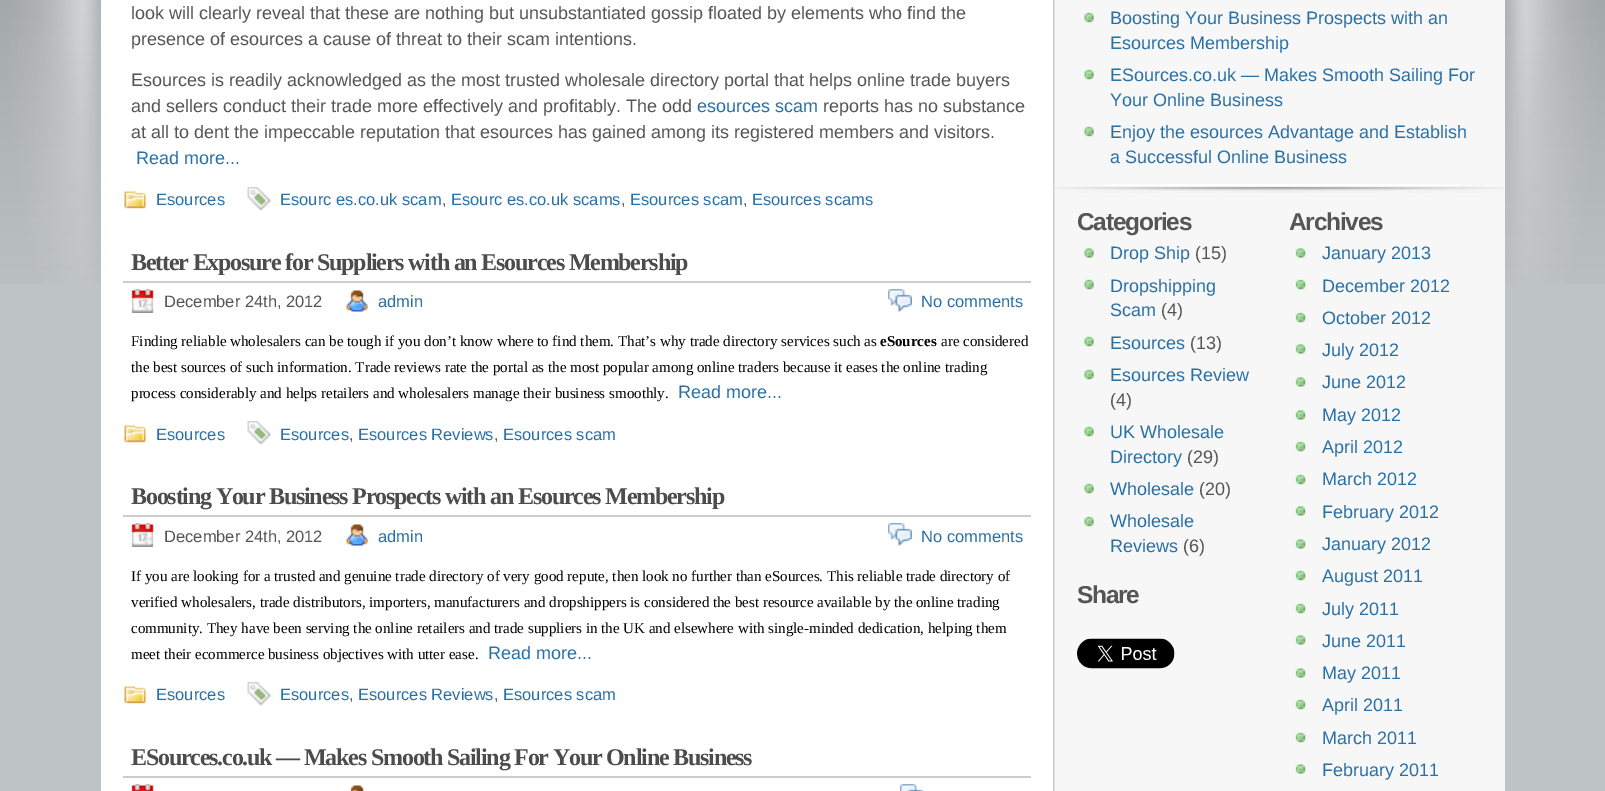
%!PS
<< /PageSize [1605 791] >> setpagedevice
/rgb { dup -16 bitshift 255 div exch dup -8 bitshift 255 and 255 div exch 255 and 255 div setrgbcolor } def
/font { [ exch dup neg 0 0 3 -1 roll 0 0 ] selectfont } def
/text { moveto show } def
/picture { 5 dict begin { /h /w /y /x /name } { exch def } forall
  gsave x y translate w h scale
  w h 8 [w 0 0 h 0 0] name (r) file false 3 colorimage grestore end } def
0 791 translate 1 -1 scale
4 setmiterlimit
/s1 { /LiberationSans-Regular 18 font 16#555555 rgb } def
/s2 { /LiberationSans-Regular 18 font 16#2970A6 rgb } def
/s3 { /LiberationSans-Regular 16.5 font 16#2970A6 rgb } def
/s4 { /LiberationSans-Regular 16.5 font 16#555555 rgb } def
/s5 { /LiberationSerif-Regular 15 font 16#000000 rgb } def
/s6 { /LiberationSerif-Bold 15 font 16#000000 rgb } def
16#BEC3C6 rgb
0 0 1605 791 rectfill
(pic1.raw) 0 0 1605 284 picture
16#FFFFFF rgb
101 0 952 791 rectfill
(pic2.raw) 1053 0 2 791 picture
s1
(look will clearly reveal that these are nothing but unsubstantiated gossip floated by elements who find the) 131 19 text
(presence of esources a cause of threat to their scam intentions.) 131 45 text
(Esources is readily acknowledged as the most trusted wholesale directory portal that helps online trade buyers) 131 86 text
(and sellers conduct their trade more effectively and profitably. The odd) 131 112 text
s2
(esources scam) 697 112 text
s1
(reports has no substance) 823 112 text
(at all to dent the impeccable reputation that esources has gained among its registered members and visitors.) 131 138 text
s2
(Read more...) 136 164 text
(pic3.raw) 124 191 22 18 picture
s3
(Esources) 156 205 text
(pic4.raw) 247 187 25 24 picture
(Esourc es.co.uk scam) 280 205 text
s4
(,) 442 205 text
s3
(Esourc es.co.uk scams) 451 205 text
s4
(,) 621 205 text
s3
(Esources scam) 630 205 text
s4
(,) 743 205 text
s3
(Esources scams) 752 205 text
16#CCCCCC rgb
123 281 908 2 rectfill
/LiberationSerif-Bold 24 font
16#4C4C4C rgb
131 270 moveto -1.2 0 (Better Exposure for Suppliers with an Esources Membership) ashow
(pic5.raw) 131 289 23 24 picture
s4
(December 24th, 2012) 164 307 text
(pic6.raw) 346 290 22 22 picture
s3
(admin) 378 307 text
(pic7.raw) 888 289 24 23 picture
(No comments) 921 307 text
s5
(Finding reliable wholesalers can be tough if you don’t know where to find them. That’s why trade directory services such as) 131 346 text
s6
(eSources) 880 346 text
s5
(are considered) 941 346 text
(the best sources of such information. Trade reviews rate the portal as the most popular among online traders because it eases the online trading) 131 372 text
(process considerably and helps retailers and wholesalers manage their business smoothly.) 131 398 text
s2
(Read more...) 678 398 text
(pic3.raw) 124 425 22 18 picture
s3
(Esources) 156 440 text
(pic4.raw) 247 421 25 24 picture
(Esources) 280 440 text
s4
(,) 349 440 text
s3
(Esources Reviews) 358 440 text
s4
(,) 494 440 text
s3
(Esources scam) 503 440 text
16#CCCCCC rgb
123 515 908 2 rectfill
/LiberationSerif-Bold 24 font
16#4C4C4C rgb
131 504 moveto -1.2 0 (Boosting Your Business Prospects with an Esources Membership) ashow
(pic5.raw) 131 523 23 24 picture
s4
(December 24th, 2012) 164 542 text
(pic6.raw) 346 524 22 22 picture
s3
(admin) 378 542 text
(pic7.raw) 888 523 24 23 picture
(No comments) 921 542 text
s5
(If you are looking for a trusted and genuine trade directory of very good repute, then look no further than eSources. This reliable trade directory of) 131 581 text
(verified wholesalers, trade distributors, importers, manufacturers and dropshippers is considered the best resource available by the online trading) 131 607 text
(community. They have been serving the online retailers and trade suppliers in the UK and elsewhere with single-minded dedication, helping them) 131 633 text
(meet their ecommerce business objectives with utter ease.) 131 659 text
s2
(Read more...) 488 659 text
(pic3.raw) 124 686 22 18 picture
s3
(Esources) 156 700 text
(pic4.raw) 247 682 25 24 picture
(Esources) 280 700 text
s4
(,) 349 700 text
s3
(Esources Reviews) 358 700 text
s4
(,) 494 700 text
s3
(Esources scam) 503 700 text
16#CCCCCC rgb
123 776 908 2 rectfill
/LiberationSerif-Bold 24 font
16#4C4C4C rgb
131 765 moveto -1.2 0 (ESources.co.uk — Makes Smooth Sailing For Your Online Business) ashow
(pic8.raw) 131 784 23 7 picture
(pic9.raw) 350 785 14 6 picture
(pic10.raw) 900 784 24 7 picture
16#F7F7F7 rgb
1055 0 450 791 rectfill
(pic11.raw) 1054 184 450 9 picture
(pic12.raw) 1084 12 10 11 picture
s2
(Boosting Your Business Prospects with an) 1110 24 text
(Esources Membership) 1110 49 text
(pic12.raw) 1084 69 10 11 picture
(ESources.co.uk — Makes Smooth Sailing For) 1110 81 text
(Your Online Business) 1110 106 text
(pic12.raw) 1084 126 10 11 picture
(Enjoy the esources Advantage and Establish) 1110 138 text
(a Successful Online Business) 1110 163 text
/LiberationSans-Bold 24.5 font
16#555555 rgb
1077 230 moveto -1.25 0 (Categories) ashow
(pic13.raw) 1084 248 10 10 picture
s2
(Drop Ship) 1110 259 text
s1
(\(15\)) 1195 259 text
(pic12.raw) 1084 279 10 11 picture
s2
(Dropshipping) 1110 292 text
(Scam) 1110 316 text
s1
(\(4\)) 1161 316 text
(pic12.raw) 1084 336 10 11 picture
s2
(Esources) 1110 349 text
s1
(\(13\)) 1190 349 text
(pic12.raw) 1084 369 10 11 picture
s2
(Esources Review) 1110 381 text
s1
(\(4\)) 1110 406 text
(pic12.raw) 1084 426 10 11 picture
s2
(UK Wholesale) 1110 438 text
(Directory) 1110 463 text
s1
(\(29\)) 1187 463 text
(pic12.raw) 1084 483 10 11 picture
s2
(Wholesale) 1110 495 text
s1
(\(20\)) 1199 495 text
(pic12.raw) 1084 516 10 11 picture
s2
(Wholesale) 1110 527 text
(Reviews) 1110 552 text
s1
(\(6\)) 1183 552 text
/LiberationSans-Bold 24.5 font
1077 603 moveto -1.25 0 (Share) ashow
(pic14.raw) 1077 638 98 31 picture
1289 230 moveto -1.25 0 (Archives) ashow
(pic15.raw) 1295 248 11 10 picture
s2
(January 2013) 1322 259 text
(pic16.raw) 1295 279 11 11 picture
(December 2012) 1322 292 text
(pic16.raw) 1295 312 11 11 picture
(October 2012) 1322 324 text
(pic15.raw) 1295 344 11 10 picture
(July 2012) 1322 356 text
(pic15.raw) 1295 377 11 10 picture
(June 2012) 1322 388 text
(pic15.raw) 1295 410 11 10 picture
(May 2012) 1322 421 text
(pic16.raw) 1295 441 11 11 picture
(April 2012) 1322 453 text
(pic16.raw) 1295 474 11 11 picture
(March 2012) 1322 485 text
(pic15.raw) 1295 506 11 10 picture
(February 2012) 1322 518 text
(pic15.raw) 1295 539 11 10 picture
(January 2012) 1322 550 text
(pic16.raw) 1295 570 11 11 picture
(August 2011) 1322 582 text
(pic16.raw) 1295 603 11 11 picture
(July 2011) 1322 615 text
(pic15.raw) 1295 635 11 10 picture
(June 2011) 1322 647 text
(pic15.raw) 1295 668 11 10 picture
(May 2011) 1322 679 text
(pic16.raw) 1295 699 11 11 picture
(April 2011) 1322 711 text
(pic16.raw) 1295 732 11 11 picture
(March 2011) 1322 744 text
(pic15.raw) 1295 764 11 10 picture
(February 2011) 1322 776 text
showpage
